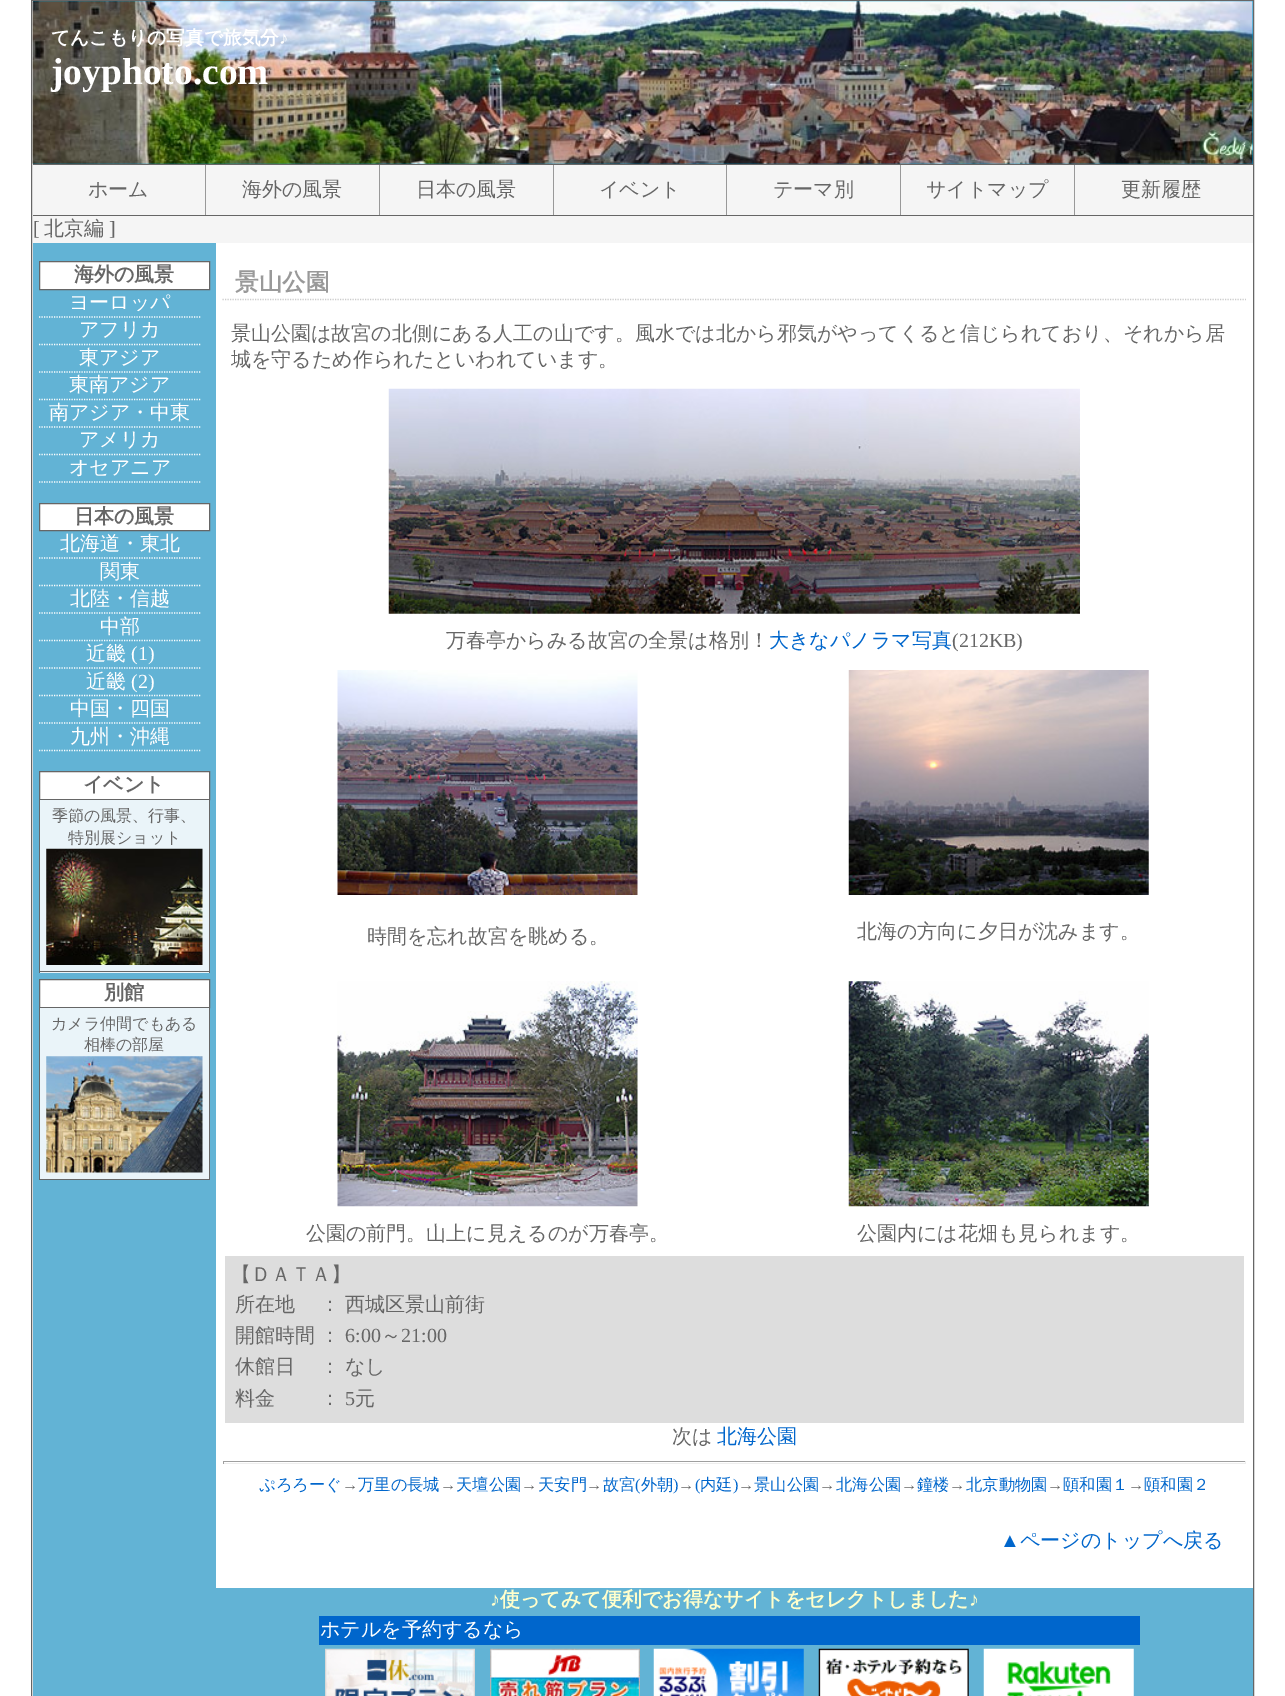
%!PS
<< /PageSize [1285 1696] >> setpagedevice
/rgb { dup -16 bitshift 255 div exch dup -8 bitshift 255 and 255 div exch 255 and 255 div setrgbcolor } def
/font { [ exch dup neg 0 0 3 -1 roll 0 0 ] selectfont } def
/text { moveto show } def
/picture { 5 dict begin { /h /w /y /x /name } { exch def } forall
  gsave x y translate w h scale
  w h 8 [w 0 0 h 0 0] name (r) file false 3 colorimage grestore end } def
0 1696 translate 1 -1 scale
4 setmiterlimit
/s1 { /WenQuanYiZenHei-Bold 18.75 font 16#FFFFFF rgb } def
/s2 { /LiberationSerif-Bold 18.75 font 16#FFFFFF rgb } def
/s3 { /LiberationSerif-Bold 37.5 font 16#FFFFFF rgb } def
/s4 { /WenQuanYiZenHei-Medium 20 font 16#666666 rgb } def
/s5 { /LiberationSerif-Regular 20 font 16#666666 rgb } def
/s6 { /WenQuanYiZenHei-Bold 20 font 16#666666 rgb } def
/s7 { /WenQuanYiZenHei-Medium 20 font 16#FFFFFF rgb } def
/s8 { /LiberationSerif-Regular 20 font 16#FFFFFF rgb } def
/s9 { /WenQuanYiZenHei-Medium 16 font 16#666666 rgb } def
/s10 { /WenQuanYiZenHei-Bold 23.5 font 16#999999 rgb } def
/s11 { /WenQuanYiZenHei-Medium 20 font 16#0066CC rgb } def
/s12 { /WenQuanYiZenHei-Medium 16.25 font 16#0066CC rgb } def
/s13 { /LiberationSerif-Regular 16.25 font 16#666666 rgb } def
/s14 { /LiberationSerif-Regular 16.25 font 16#0066CC rgb } def
/s15 { /LiberationSerif-Regular 20 font 16#0066CC rgb } def
/s16 { /LiberationSerif-Bold 20 font 16#FFFFCC rgb } def
/s17 { /WenQuanYiZenHei-Bold 20 font 16#FFFFCC rgb } def
16#FFFFFF rgb
0 0 1285 1696 rectfill
16#666666 rgb
31.5 0.5 1222 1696 rectstroke
16#0099CC rgb
33 1 1220 163 rectfill
(pic1.raw) 32 1 1221 163 picture
s1
(てんこもりの写真で旅気分) 51 44 text
s2
(♪) 279 44 text
s3
(joyphoto.com) 51 84 text
16#F5F5F5 rgb
33 165 1220 50 rectfill
16#666666 rgb
33 164 1220 1 rectfill
33 215 1220 1 rectfill
16#999999 rgb
205 165 1 50 rectfill
s4
(ホーム) 88 196 text
16#999999 rgb
379 165 1 50 rectfill
s4
(海外の風景) 242 196 text
16#999999 rgb
553 165 1 50 rectfill
s4
(日本の風景) 416 196 text
16#999999 rgb
726 165 1 50 rectfill
s4
(イベント) 599 196 text
16#999999 rgb
900 165 1 50 rectfill
s4
(テーマ別) 773 196 text
16#999999 rgb
1074 165 1 50 rectfill
s4
(サイトマップ) 926 196 text
(更新履歴) 1121 196 text
16#F5F5F5 rgb
33 216 1220 27 rectfill
s5
([) 33 235 text
s4
(北京編) 44 235 text
s5
(]) 109 235 text
16#62B3D5 rgb
33 243 183 1453 rectfill
16#FFFFFF rgb
39.5 261.5 moveto 209.5 261.5 lineto 209.5 289.5 lineto 39.5 289.5 lineto closepath gsave fill grestore
16#666666 rgb
stroke
s6
(海外の風景) 74 281 text
16#FFFFFF rgb
1.2 setlinewidth
[1.25 1.25] 0 setdash
39 317 moveto 201 317 lineto stroke
s7
(ヨーロッパ) 69 309 text
39 344.5 moveto 201 344.5 lineto stroke
(アフリカ) 79 336 text
39 372 moveto 201 372 lineto stroke
(東アジア) 79 364 text
39 399.5 moveto 201 399.5 lineto stroke
(東南アジア) 69 391 text
39 427 moveto 201 427 lineto stroke
(南アジア・中東) 49 419 text
39 454.5 moveto 201 454.5 lineto stroke
(アメリカ) 79 446 text
39 482 moveto 201 482 lineto stroke
(オセアニア) 69 474 text
39.5 503.5 moveto 209.5 503.5 lineto 209.5 530.5 lineto 39.5 530.5 lineto closepath gsave fill grestore
16#666666 rgb
1 setlinewidth
[] 0 setdash
stroke
s6
(日本の風景) 74 523 text
16#FFFFFF rgb
1.2 setlinewidth
[1.25 1.25] 0 setdash
39 558 moveto 201 558 lineto stroke
s7
(北海道・東北) 60 550 text
39 585.5 moveto 201 585.5 lineto stroke
(関東) 100 578 text
39 613 moveto 201 613 lineto stroke
(北陸・信越) 70 605 text
39 640.5 moveto 201 640.5 lineto stroke
(中部) 100 633 text
39 668 moveto 201 668 lineto stroke
(近畿) 86 660 text
s8
(\(1\)) 131 660 text
39 695.5 moveto 201 695.5 lineto stroke
s7
(近畿) 86 688 text
s8
(\(2\)) 131 688 text
39 723 moveto 201 723 lineto stroke
s7
(中国・四国) 70 715 text
39 750.5 moveto 201 750.5 lineto stroke
(九州・沖縄) 70 743 text
39.5 771.5 moveto 209.5 771.5 lineto 209.5 799.5 lineto 39.5 799.5 lineto closepath gsave fill grestore
16#666666 rgb
1 setlinewidth
[] 0 setdash
stroke
s6
(イベント) 83 791 text
16#EAF4F9 rgb
40 800 169 173 rectfill
16#666666 rgb
209 800 1 173 rectfill
39 971 171 1 rectfill
39 800 1 173 rectfill
s9
(季節の風景、行事、) 52 821 text
(特別展ショット) 68 843 text
(pic2.raw) 46 848 157 117 picture
16#FFFFFF rgb
39.5 979.5 moveto 209.5 979.5 lineto 209.5 1007.5 lineto 39.5 1007.5 lineto closepath gsave fill grestore
16#666666 rgb
stroke
s6
(別館) 104 999 text
16#EAF4F9 rgb
40 1008 169 171 rectfill
16#666666 rgb
209 1008 1 172 rectfill
39 1179 171 1 rectfill
39 1008 1 172 rectfill
s9
(カメラ仲間でもある) 51 1029 text
(相棒の部屋) 84 1050 text
(pic3.raw) 46 1056 157 117 picture
16#CCCCCC rgb
1.2 setlinewidth
[1.25 1.25] 0 setdash
222.5 299.5 moveto 1246 299.5 lineto stroke
s10
(景山公園) 235 290 text
s4
(景山公園は故宮の北側にある人工の山です。風水では北から邪気がやってくると信じられており、それから居) 231 340 text
(城を守るため作られたといわれています。) 231 366 text
(pic4.raw) 388 388 692 226 picture
(万春亭からみる故宮の全景は格別！) 446 647 text
s11
(大きなパノラマ写真) 769 647 text
s5
(\(212KB\)) 952 647 text
(pic5.raw) 337 670 301 225 picture
(pic6.raw) 848 670 301 225 picture
s4
(時間を忘れ故宮を眺める。) 367 943 text
(北海の方向に夕日が沈みます。) 857 938 text
(pic7.raw) 337 981 301 226 picture
(pic8.raw) 848 981 301 226 picture
(公園の前門。山上に見えるのが万春亭。) 306 1240 text
(公園内には花畑も見られます。) 857 1240 text
16#DDDDDD rgb
225 1256 1019 167 rectfill
s4
(【ＤＡＴＡ】) 231 1281 text
(所在地) 235 1311 text
(：) 320 1311 text
(西城区景山前街) 345 1311 text
(開館時間) 235 1342 text
(：) 320 1342 text
s5
(6:00) 345 1342 text
s4
(～) 381 1342 text
s5
(21:00) 401 1342 text
s4
(休館日) 235 1373 text
(：) 320 1373 text
(なし) 345 1373 text
(料金) 235 1405 text
(：) 320 1405 text
s5
(5) 345 1405 text
s4
(元) 355 1405 text
(次は) 672 1443 text
s11
(北海公園) 717 1443 text
16#9F9F9F rgb
223 1461 1023 1 rectfill
16#EEEEEE rgb
1245 1461 1 3 rectfill
223 1463 1023 1 rectfill
16#9F9F9F rgb
223 1461 1 3 rectfill
s12
(ぷろろーぐ) 259 1490 text
s13
(→) 342 1490 text
s12
(万里の長城) 358 1490 text
s13
(→) 440 1490 text
s12
(天壇公園) 456 1490 text
s13
(→) 521 1490 text
s12
(天安門) 538 1490 text
s13
(→) 586 1490 text
s12
(故宮) 603 1490 text
s14
(\() 635 1490 text
s12
(外朝) 641 1490 text
s14
(\)) 673 1490 text
s13
(→) 678 1490 text
s14
(\() 695 1490 text
s12
(内廷) 700 1490 text
s14
(\)) 733 1490 text
s13
(→) 738 1490 text
s12
(景山公園) 754 1490 text
s13
(→) 819 1490 text
s12
(北海公園) 836 1490 text
s13
(→) 901 1490 text
s12
(鐘楼) 917 1490 text
s13
(→) 949 1490 text
s12
(北京動物園) 966 1490 text
s13
(→) 1047 1490 text
s12
(頤和園１) 1063 1490 text
s13
(→) 1128 1490 text
s12
(頤和園２) 1144 1490 text
s15
(▲) 1000 1547 text
s11
(ページのトップへ戻る) 1020 1547 text
16#62B3D5 rgb
216 1588 1037 108 rectfill
s16
(♪) 490 1606 text
s17
(使ってみて便利でお得なサイトをセレクトしました) 500 1606 text
s16
(♪) 969 1606 text
16#0066CC rgb
319 1616 821 29 rectfill
s7
(ホテルを予約するなら) 320 1636 text
(pic9.raw) 325 1648 150 48 picture
(pic10.raw) 490 1648 150 48 picture
(pic11.raw) 653 1648 151 48 picture
(pic12.raw) 818 1648 151 48 picture
(pic13.raw) 983 1648 151 48 picture
showpage
